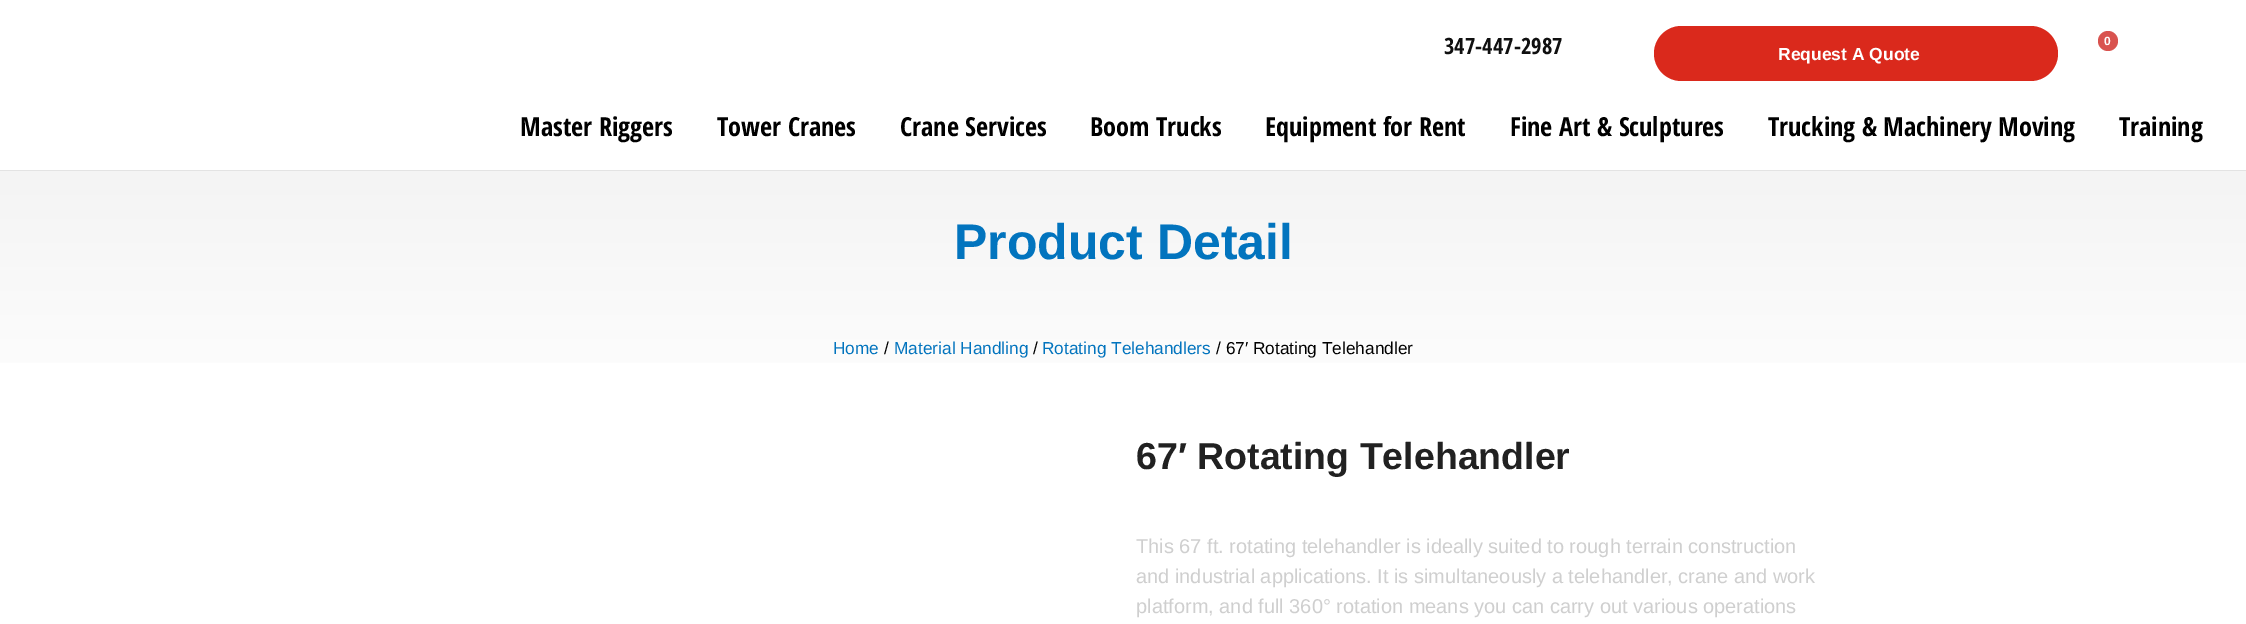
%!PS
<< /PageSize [2246 624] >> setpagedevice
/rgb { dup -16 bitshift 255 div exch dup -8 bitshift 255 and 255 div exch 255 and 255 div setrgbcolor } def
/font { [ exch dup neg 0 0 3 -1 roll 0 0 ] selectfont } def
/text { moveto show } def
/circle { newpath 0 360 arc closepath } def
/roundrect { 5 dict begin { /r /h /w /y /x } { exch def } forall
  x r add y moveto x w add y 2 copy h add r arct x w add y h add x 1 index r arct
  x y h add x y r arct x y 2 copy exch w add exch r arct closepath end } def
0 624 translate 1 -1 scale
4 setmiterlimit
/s1 { /OpenSansCondensed-Bold 22.5 font 16#101010 rgb } def
/s2 { /LiberationSans-Bold 17.5 font 16#FFFFFF rgb } def
/s3 { /LiberationSans-Bold 12 font 16#FFFFFF rgb } def
/s4 { /OpenSansCondensed-Bold 26.25 font 16#000000 rgb } def
/s5 { /LiberationSans-Bold 50 font 16#0274BE rgb } def
/s6 { /LiberationSans-Regular 17.25 font 16#0274BE rgb } def
/s7 { /LiberationSans-Regular 17.25 font 16#000000 rgb } def
/s8 { /LiberationSans-Bold 37.5 font 16#212121 rgb } def
/s9 { /LiberationSans-Regular 20 font 16#CFCFCF rgb } def
16#FFFFFF rgb
0 0 2246 624 rectfill
16#E3E3E3 rgb
0 170 2246 1 rectfill
s1
(347-447-2987) 1444 54 text
16#DA291C rgb
1654 26 404 55 27.5 roundrect fill
s2
(Request A Quote) 1778 60 text
16#D9534F rgb
2108 41 10 circle fill
s3
(0) 2104 45 text
s4
(Master Riggers) 520 136 text
(Tower Cranes) 717 136 text
(Crane Services) 900 136 text
(Boom Trucks) 1090 136 text
(Equipment for Rent) 1265 136 text
(Fine Art & Sculptures) 1510 136 text
(Trucking & Machinery Moving) 1768 136 text
(Training) 2119 136 text
gsave 0 171 moveto 2246 171 lineto 2246 363 lineto 0 363 lineto closepath clip newpath
<< /ShadingType 2 /ColorSpace /DeviceRGB /Coords [1123 171 1123 420] /Extend [true true] /Function << /FunctionType 2 /Domain [0 1] /C0 [0.957 0.957 0.957] /C1 [1 1 1] /N 1 >> >> shfill grestore
s5
(Product Detail) 954 259 text
s6
(Home) 833 354 text
s7
(/) 884 354 text
s6
(Material Handling) 894 354 text
s7
(/) 1033 354 text
s6
(Rotating Telehandlers) 1042 354 text
s7
(/ 67′ Rotating Telehandler) 1216 354 text
s8
(67′ Rotating Telehandler) 1136 469 text
s9
(This 67 ft. rotating telehandler is ideally suited to rough terrain construction) 1136 553 text
(and industrial applications. It is simultaneously a telehandler, crane and work) 1136 583 text
(platform, and full 360° rotation means you can carry out various operations) 1136 613 text
showpage
